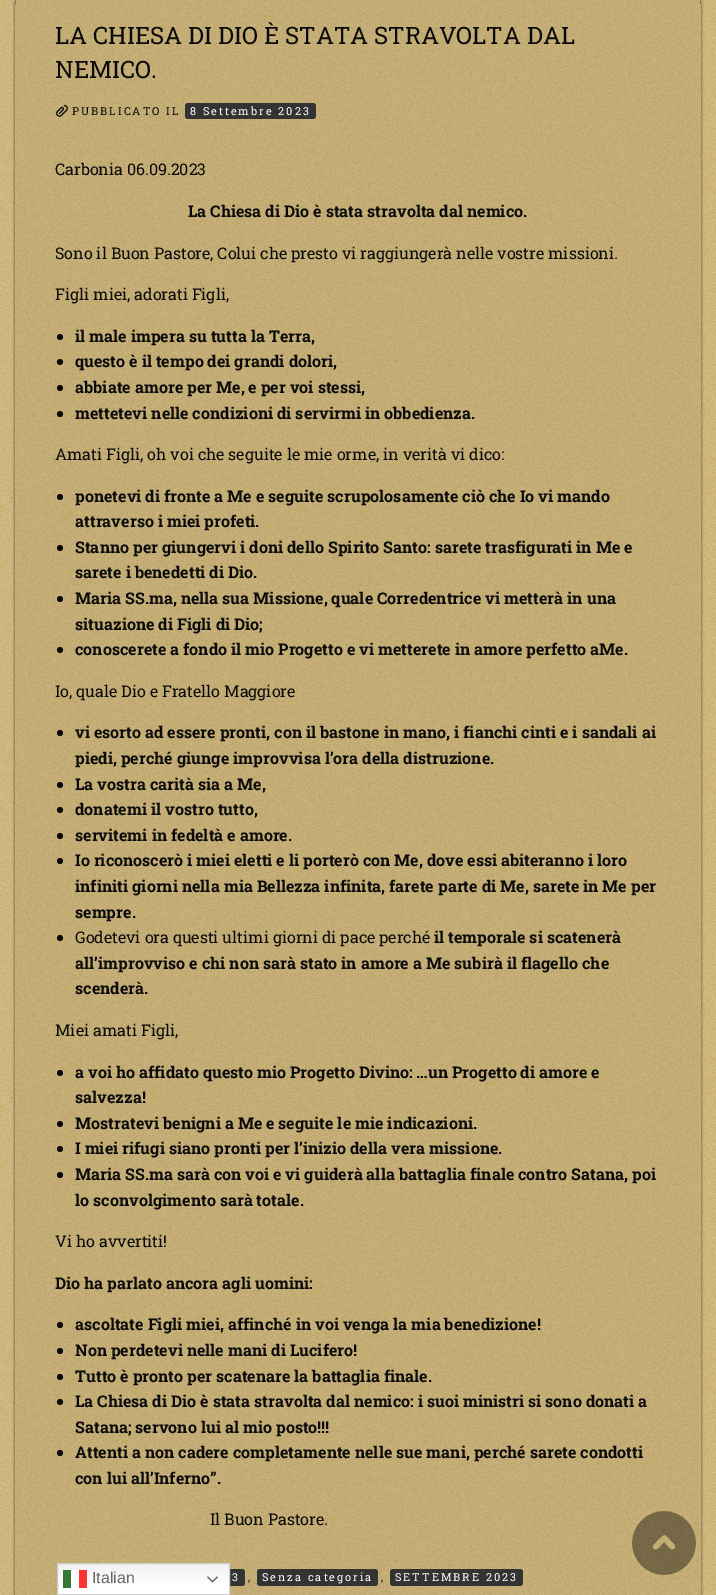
%!PS
<< /PageSize [716 1595] /PageUsesTransparency true >> setpagedevice
/rgb { dup -16 bitshift 255 div exch dup -8 bitshift 255 and 255 div exch 255 and 255 div setrgbcolor } def
/font { [ exch dup neg 0 0 3 -1 roll 0 0 ] selectfont } def
/text { moveto show } def
/alpha { dup .setfillconstantalpha .setstrokeconstantalpha } def
/circle { newpath 0 360 arc closepath } def
/roundrect { 5 dict begin { /r /h /w /y /x } { exch def } forall
  x r add y moveto x w add y 2 copy h add r arct x w add y h add x 1 index r arct
  x y h add x y r arct x y 2 copy exch w add exch r arct closepath end } def
/shadow { 12 dict begin { /a /b /q /h /w /y /x } { exch def } forall gsave /was 0 def
  9 -2 -9 { dup b mul 4 div /e exch def 1 sub .425 mul 2.718 exch exp 1 add a .99 .min exch div /now exch def
    1 1 now sub 1 was sub div sub alpha /was now def
    w h .min e 2 mul add 0 gt { x e sub y e sub w e 2 mul add h e 2 mul add
      q e add b .6 mul add w h .min 2 div e add .min 0 .max roundrect fill } if } for grestore end } def
/picture { 5 dict begin { /h /w /y /x /name } { exch def } forall
  gsave x y translate w h scale
  w h 8 [w 0 0 h 0 0] name (r) file false 3 colorimage grestore end } def
0 .pushpdf14devicefilter
0 1595 translate 1 -1 scale
4 setmiterlimit
/s1 { /RobotoSlab-Regular 24 font 16#0A0A0A rgb } def
/s2 { /RobotoSlab-Regular 16 font 16#0A0A0A rgb } def
/s3 { /RobotoSlab-Bold 16 font 16#0A0A0A rgb } def
/s4 { /LiberationSans-Regular 16 font 16#666666 rgb } def
16#FFFFFF rgb
0 0 716 1595 rectfill
(pic1.raw) 0 0 716 1595 picture
gsave
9 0 moveto 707 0 lineto 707 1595 lineto 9 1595 lineto closepath 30 -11 moveto 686 -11 lineto 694.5 -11 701 -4.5 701 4 curveto 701 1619 lineto 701 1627.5 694.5 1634 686 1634 curveto 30 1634 lineto 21.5 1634 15 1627.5 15 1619 curveto 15 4 lineto 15 -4.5 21.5 -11 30 -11 curveto closepath eoclip newpath
16#000000 rgb
15 -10 686 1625 15 1.5 0.6 shadow
grestore
0.05 alpha
16#000000 rgb
15 0 686 1595 rectfill
1 alpha
s1
(LA CHIESA DI DIO È STATA STRAVOLTA DAL) 55 44 text
(NEMICO.) 55 78 text
(pic2.raw) 56 104 12 13 picture
/RobotoSlab-Regular 11 font
72 115 moveto 2 0 (PUBBLICATO IL) ashow
16#333333 rgb
185 103 131 16 3 roundrect fill
16#FFFFFF rgb
190 115 moveto 2 0 (8 Settembre 2023) ashow
s2
(Carbonia 06.09.2023) 55 175 text
s3
(La Chiesa di Dio è stata stravolta dal nemico.) 188 217 text
s2
(Sono il Buon Pastore, Colui che presto vi raggiungerà nelle vostre missioni.) 55 259 text
(Figli miei, adorati Figli,) 55 300 text
60 337 3 circle fill
s3
(il male impera su tutta la Terra,) 75 342 text
60 362 3 circle fill
(questo è il tempo dei grandi dolori,) 75 367 text
60 388 3 circle fill
(abbiate amore per Me, e per voi stessi,) 75 393 text
60 414 3 circle fill
(mettetevi nelle condizioni di servirmi in obbedienza.) 75 419 text
s2
(Amati Figli, oh voi che seguite le mie orme, in verità vi dico:) 55 460 text
60 497 3 circle fill
s3
(ponetevi di fronte a Me e seguite scrupolosamente ciò che Io vi mando) 75 502 text
(attraverso i miei profeti.) 75 527 text
60 548 3 circle fill
(Stanno per giungervi i doni dello Spirito Santo: sarete trasfigurati in Me e) 75 553 text
(sarete i benedetti di Dio.) 75 578 text
60 599 3 circle fill
(Maria SS.ma, nella sua Missione, quale Corredentrice vi metterà in una) 75 604 text
(situazione di Figli di Dio;) 75 630 text
60 650 3 circle fill
(conoscerete a fondo il mio Progetto e vi metterete in amore perfetto aMe.) 75 655 text
s2
(Io, quale Dio e Fratello Maggiore) 55 697 text
60 733 3 circle fill
s3
(vi esorto ad essere pronti, con il bastone in mano, i fianchi cinti e i sandali ai) 75 738 text
(piedi, perché giunge improvvisa l’ora della distruzione.) 75 764 text
60 785 3 circle fill
(La vostra carità sia a Me,) 75 790 text
60 810 3 circle fill
(donatemi il vostro tutto,) 75 815 text
60 836 3 circle fill
(servitemi in fedeltà e amore.) 75 841 text
60 861 3 circle fill
(Io riconoscerò i miei eletti e li porterò con Me, dove essi abiteranno i loro) 75 866 text
(infiniti giorni nella mia Bellezza infinita, farete parte di Me, sarete in Me per) 75 892 text
(sempre.) 75 918 text
60 938 3 circle fill
s2
(Godetevi ora questi ultimi giorni di pace perché) 75 943 text
s3
(il temporale si scatenerà) 434 943 text
(all’improvviso e chi non sarà stato in amore a Me subirà il flagello che) 75 969 text
(scenderà.) 75 994 text
s2
(Miei amati Figli,) 55 1036 text
60 1073 3 circle fill
s3
(a voi ho affidato questo mio Progetto Divino: …un Progetto di amore e) 75 1078 text
(salvezza!) 75 1103 text
60 1124 3 circle fill
(Mostratevi benigni a Me e seguite le mie indicazioni.) 75 1129 text
60 1149 3 circle fill
(I miei rifugi siano pronti per l’inizio della vera missione.) 75 1154 text
60 1175 3 circle fill
(Maria SS.ma sarà con voi e vi guiderà alla battaglia finale contro Satana, poi) 75 1180 text
(lo sconvolgimento sarà totale.) 75 1206 text
s2
(Vi ho avvertiti!) 55 1247 text
s3
(Dio ha parlato ancora agli uomini:) 55 1289 text
60 1325 3 circle fill
(ascoltate Figli miei, affinché in voi venga la mia benedizione!) 75 1330 text
60 1351 3 circle fill
(Non perdetevi nelle mani di Lucifero!) 75 1356 text
60 1377 3 circle fill
(Tutto è pronto per scatenare la battaglia finale.) 75 1382 text
60 1402 3 circle fill
(La Chiesa di Dio è stata stravolta dal nemico: i suoi ministri si sono donati a) 75 1407 text
(Satana; servono lui al mio posto!!!) 75 1433 text
60 1453 3 circle fill
(Attenti a non cadere completamente nelle sue mani, perché sarete condotti) 75 1458 text
(con lui all’Inferno”.) 75 1484 text
s2
(Il Buon Pastore.) 210 1525 text
16#333333 rgb
157 1569 88 17 3 roundrect fill
/RobotoSlab-Regular 11 font
16#FFFFFF rgb
232 1581 moveto 2 0 (3) ashow
16#0A0A0A rgb
248 1581 moveto 2 0 (,) ashow
16#333333 rgb
257 1569 121 17 3 roundrect fill
16#FFFFFF rgb
262 1581 moveto 2 0 (Senza categoria) ashow
16#0A0A0A rgb
381 1581 moveto 2 0 (,) ashow
16#333333 rgb
390 1569 133 17 3 roundrect fill
16#FFFFFF rgb
395 1581 moveto 2 0 (SETTEMBRE 2023) ashow
(pic3.raw) 632 1511 64 64 picture
gsave 58 1564 moveto 229 1564 lineto 229 1594 lineto 58 1594 lineto closepath clip newpath
<< /ShadingType 2 /ColorSpace /DeviceRGB /Coords [144 1563 144 1595] /Extend [true true] /Function << /FunctionType 3 /Domain [0 1] /Functions [<< /FunctionType 2 /Domain [0 1] /C0 [0.937 0.937 0.937] /C1 [1 1 1] /N 1 >> << /FunctionType 2 /Domain [0 1] /C0 [1 1 1] /C1 [1 1 1] /N 1 >>] /Bounds [0.7] /Encode [0 1 0 1] >> >> shfill grestore
16#CCCCCC rgb
57.5 1563.5 172 31 rectstroke
16#337833 rgb
63 1570 8 18 rectfill
0.8 alpha
16#FFFFFF rgb
71 1570 8 18 rectfill
1 alpha
16#FC3333 rgb
79 1570 8 18 rectfill
s4
(Italian) 92 1583 text
(pic4.raw) 207 1576 11 7 picture
.poppdf14devicefilter showpage
